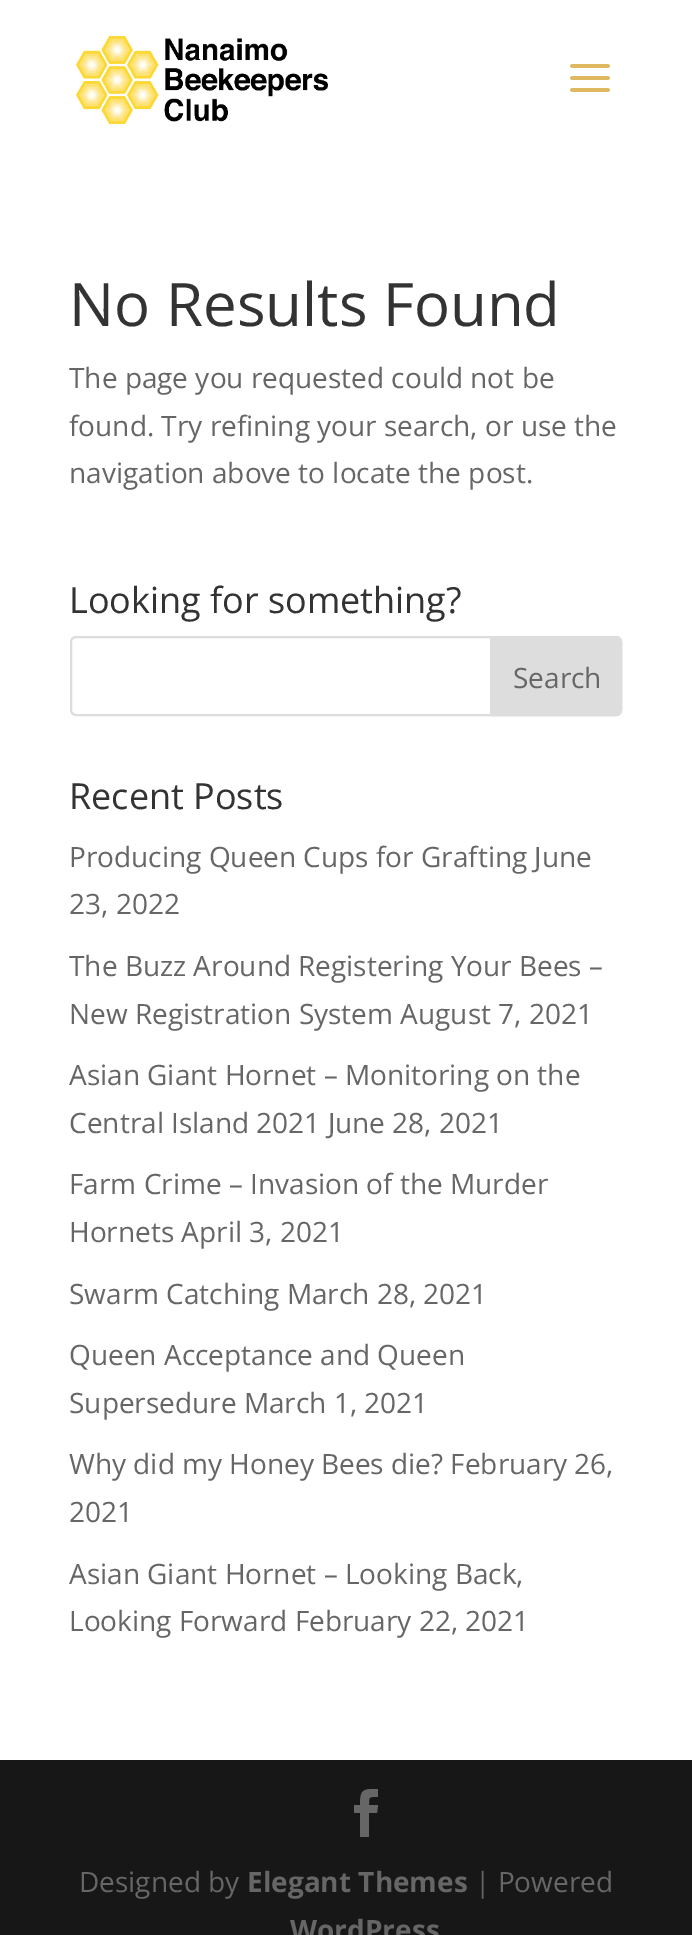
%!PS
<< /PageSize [692 1935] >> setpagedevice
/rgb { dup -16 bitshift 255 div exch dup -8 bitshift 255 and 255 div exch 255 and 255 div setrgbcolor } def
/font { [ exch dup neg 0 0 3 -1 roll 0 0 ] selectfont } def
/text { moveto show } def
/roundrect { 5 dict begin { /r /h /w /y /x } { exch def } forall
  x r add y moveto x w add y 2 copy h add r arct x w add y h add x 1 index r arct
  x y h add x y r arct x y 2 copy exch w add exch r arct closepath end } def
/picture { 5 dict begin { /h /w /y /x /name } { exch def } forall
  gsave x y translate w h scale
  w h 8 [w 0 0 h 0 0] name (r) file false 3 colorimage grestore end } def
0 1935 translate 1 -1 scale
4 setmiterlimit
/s1 { /OpenSans-Regular 60 font 16#333333 rgb } def
/s2 { /OpenSans-Regular 28 font 16#666666 rgb } def
/s3 { /OpenSans-Regular 36 font 16#333333 rgb } def
/s4 { /OpenSans-Bold 28 font 16#666666 rgb } def
16#FFFFFF rgb
0 0 692 1935 rectfill
(pic1.raw) 76 36 252 88 picture
(pic2.raw) 570 64 40 28 picture
s1
(No Results Found) 69 326 text
s2
(The page you requested could not be) 69 388 text
(found. Try refining your search, or use the) 69 436 text
(navigation above to locate the post.) 69 483 text
s3
(Looking for something?) 69 613 text
16#DDDDDD rgb
2 setlinewidth
71 637 550 78 5 roundrect stroke
491 637 moveto 616 637 lineto 619 637 621 639 621 642 curveto 621 710 lineto 621 713 619 715 616 715 curveto 491 715 lineto closepath gsave fill grestore
stroke
s2
(Search) 513 688 text
s3
(Recent Posts) 69 809 text
s2
(Producing Queen Cups for Grafting June) 69 867 text
(23, 2022) 69 914 text
(The Buzz Around Registering Your Bees –) 69 976 text
(New Registration System August 7, 2021) 69 1024 text
(Asian Giant Hornet – Monitoring on the) 69 1085 text
(Central Island 2021 June 28, 2021) 69 1133 text
(Farm Crime – Invasion of the Murder) 69 1194 text
(Hornets April 3, 2021) 69 1242 text
(Swarm Catching March 28, 2021) 69 1304 text
(Queen Acceptance and Queen) 69 1365 text
(Supersedure March 1, 2021) 69 1413 text
(Why did my Honey Bees die? February 26,) 69 1474 text
(2021) 69 1522 text
(Asian Giant Hornet – Looking Back,) 69 1584 text
(Looking Forward February 22, 2021) 69 1631 text
16#171717 rgb
0 1760 692 175 rectfill
16#666666 rgb
360 1837 moveto 369 1837 lineto 369 1813 lineto 377 1813 lineto 378 1805 lineto 369 1805 lineto 369 1796 369 1797 378 1797 curveto 378 1789 lineto 363 1789 360 1789 360 1805 curveto 354 1805 lineto 354 1813 lineto 360 1813 lineto closepath fill
(Designed by) 79 1892 text
s4
(Elegant Themes) 247 1892 text
s2
(| Powered) 475 1892 text
s4
(WordPress) 290 1940 text
showpage
